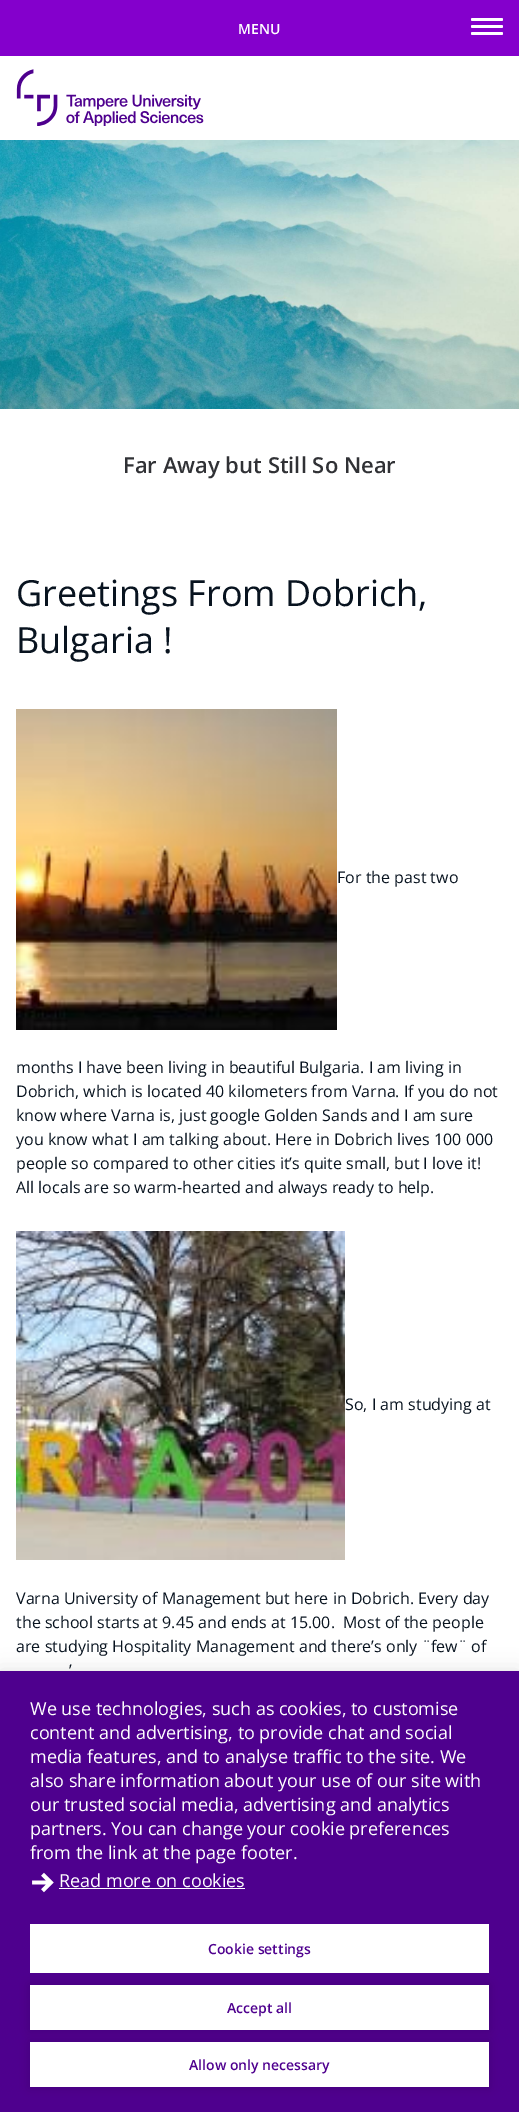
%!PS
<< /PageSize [519 2112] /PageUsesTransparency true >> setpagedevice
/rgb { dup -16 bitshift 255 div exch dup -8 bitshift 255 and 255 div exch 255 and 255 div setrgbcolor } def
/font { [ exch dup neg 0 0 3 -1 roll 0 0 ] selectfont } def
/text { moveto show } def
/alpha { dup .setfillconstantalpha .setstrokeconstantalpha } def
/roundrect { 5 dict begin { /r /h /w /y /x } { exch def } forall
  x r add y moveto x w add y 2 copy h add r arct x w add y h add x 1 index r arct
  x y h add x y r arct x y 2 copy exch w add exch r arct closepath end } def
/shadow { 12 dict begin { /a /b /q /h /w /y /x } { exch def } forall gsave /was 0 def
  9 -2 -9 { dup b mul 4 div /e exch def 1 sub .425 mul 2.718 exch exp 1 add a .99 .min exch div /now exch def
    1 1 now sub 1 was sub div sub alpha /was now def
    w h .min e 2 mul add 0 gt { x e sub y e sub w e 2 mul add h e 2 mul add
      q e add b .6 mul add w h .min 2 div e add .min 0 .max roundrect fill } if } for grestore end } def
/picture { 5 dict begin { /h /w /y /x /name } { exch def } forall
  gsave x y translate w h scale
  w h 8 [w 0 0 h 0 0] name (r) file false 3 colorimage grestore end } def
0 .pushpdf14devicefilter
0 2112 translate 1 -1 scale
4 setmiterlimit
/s1 { /OpenSans-SemiBold 14 font 16#FFFFFF rgb } def
/s2 { /OpenSans-SemiBold 22 font 16#303135 rgb } def
/s3 { /OpenSans-Regular 36 font 16#08131F rgb } def
/s4 { /OpenSans-Regular 16 font 16#08131F rgb } def
/s5 { /OpenSans-Regular 18 font 16#FFFFFF rgb } def
/s6 { /OpenSans-SemiBold 14 font 16#4E008E rgb } def
16#FFFFFF rgb
0 0 519 2112 rectfill
16#8400CC rgb
0 0 519 56 rectfill
s1
(MENU) 238 34 text
471 25 32 3 1.5 roundrect fill
471 18 32 3 1.5 roundrect fill
471 32 32 3 1.5 roundrect fill
(pic1.raw) 16 69 188 57 picture
(pic2.raw) 0 140 519 269 picture
s2
(Far Away but Still So Near) 123 473 text
s3
(Greetings From Dobrich,) 16 606 text
(Bulgaria !) 16 653 text
(pic3.raw) 16 709 321 321 picture
s4
(For the past two) 337 883 text
(months I have been living in beautiful Bulgaria. I am living in) 16 1073 text
(Dobrich, which is located 40 kilometers from Varna. If you do not) 16 1097 text
(know where Varna is, just google Golden Sands and I am sure) 16 1121 text
(you know what I am talking about. Here in Dobrich lives 100 000) 16 1145 text
(people so compared to other cities it’s quite small, but I love it!) 16 1169 text
(All locals are so warm-hearted and always ready to help.) 16 1193 text
(pic4.raw) 16 1231 329 329 picture
(So, I am studying at) 345 1410 text
(Varna University of Management but here in Dobrich. Every day) 16 1604 text
(the school starts at 9.45 and ends at 15.00.  Most of the people) 16 1628 text
(are studying Hospitality Management and there’s only ¨few¨ of) 16 1652 text
(’) 69 1676 text
16#000000 rgb
0 1670 519 442 0 10 0.1 shadow
16#4E008E rgb
0 1671 519 441 rectfill
16#EEEEEE rgb
0 1670 519 1 rectfill
s5
(We use technologies, such as cookies, to customise) 30 1715 text
(content and advertising, to provide chat and social) 30 1739 text
(media features, and to analyse traffic to the site. We) 30 1763 text
(also share information about your use of our site with) 30 1787 text
(our trusted social media, advertising and analytics) 30 1811 text
(partners. You can change your cookie preferences) 30 1835 text
(from the link at the page footer.) 30 1859 text
(pic5.raw) 32 1872 22 21 picture
(Read more on cookies) 59 1887 text
59 1888 186 1 rectfill
30 1924 459 49 rectfill
s6
(Cookie settings) 208 1954 text
16#000000 rgb
30 1985 459 45 0 5 0.12 shadow
16#FFFFFF rgb
30 1985 459 45 rectfill
s6
(Accept all) 227 2013 text
16#000000 rgb
30 2042 459 45 0 5 0.12 shadow
16#FFFFFF rgb
30 2042 459 45 rectfill
s6
(Allow only necessary) 189 2070 text
.poppdf14devicefilter showpage
